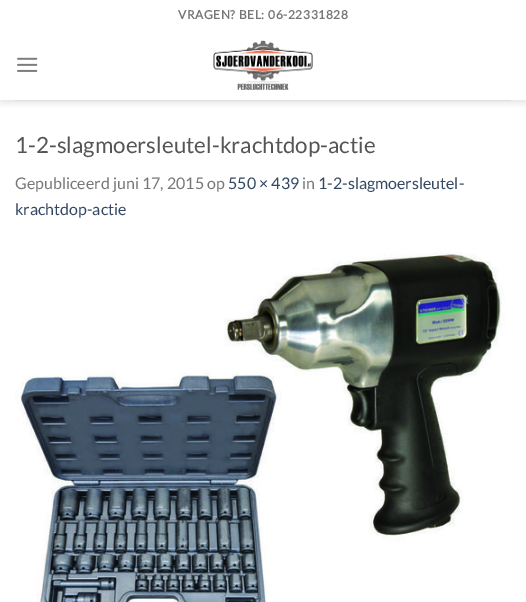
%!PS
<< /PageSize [526 602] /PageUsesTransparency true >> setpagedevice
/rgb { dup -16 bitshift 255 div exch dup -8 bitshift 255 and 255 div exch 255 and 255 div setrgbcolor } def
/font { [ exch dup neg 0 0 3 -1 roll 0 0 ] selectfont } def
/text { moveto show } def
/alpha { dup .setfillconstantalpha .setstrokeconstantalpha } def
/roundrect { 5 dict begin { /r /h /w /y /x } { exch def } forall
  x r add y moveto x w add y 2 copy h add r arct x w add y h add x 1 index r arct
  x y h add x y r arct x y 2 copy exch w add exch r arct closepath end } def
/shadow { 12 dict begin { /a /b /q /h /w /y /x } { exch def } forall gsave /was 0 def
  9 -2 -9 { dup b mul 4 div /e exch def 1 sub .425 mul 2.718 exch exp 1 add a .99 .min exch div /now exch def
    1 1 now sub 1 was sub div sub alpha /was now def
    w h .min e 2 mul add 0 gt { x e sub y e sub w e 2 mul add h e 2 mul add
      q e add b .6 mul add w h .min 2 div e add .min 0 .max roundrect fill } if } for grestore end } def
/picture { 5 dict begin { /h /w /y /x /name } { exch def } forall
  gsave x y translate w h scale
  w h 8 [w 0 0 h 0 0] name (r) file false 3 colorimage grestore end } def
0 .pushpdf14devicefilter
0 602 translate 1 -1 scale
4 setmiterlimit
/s1 { /Lato-Regular 22.4 font 16#555555 rgb } def
/s2 { /Lato-Regular 16 font 16#777777 rgb } def
/s3 { /Lato-Regular 16 font 16#334862 rgb } def
16#FFFFFF rgb
0 0 526 602 rectfill
gsave
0 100 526 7 rectclip
16#000000 rgb
1 1 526 100 0 5 0.15 shadow
grestore
/Lato-Bold 12 font
16#777777 rgb
178 19 moveto 0.6 0 (VRAGEN? BEL: 06-22331828) ashow
(pic1.raw) 17 57 21 15 picture
(pic2.raw) 213 40 100 50 picture
16#DFDFDF rgb
15 100 496 1 rectfill
s1
(1-2-slagmoersleutel-krachtdop-actie) 15 153 text
s2
(Gepubliceerd juni 17, 2015 op) 15 189 text
s3
(550 × 439) 228 189 text
s2
(in) 302 189 text
s3
(1-2-slagmoersleutel-) 318 189 text
(krachtdop-actie) 15 215 text
(pic3.raw) 15 252 490 350 picture
.poppdf14devicefilter showpage
